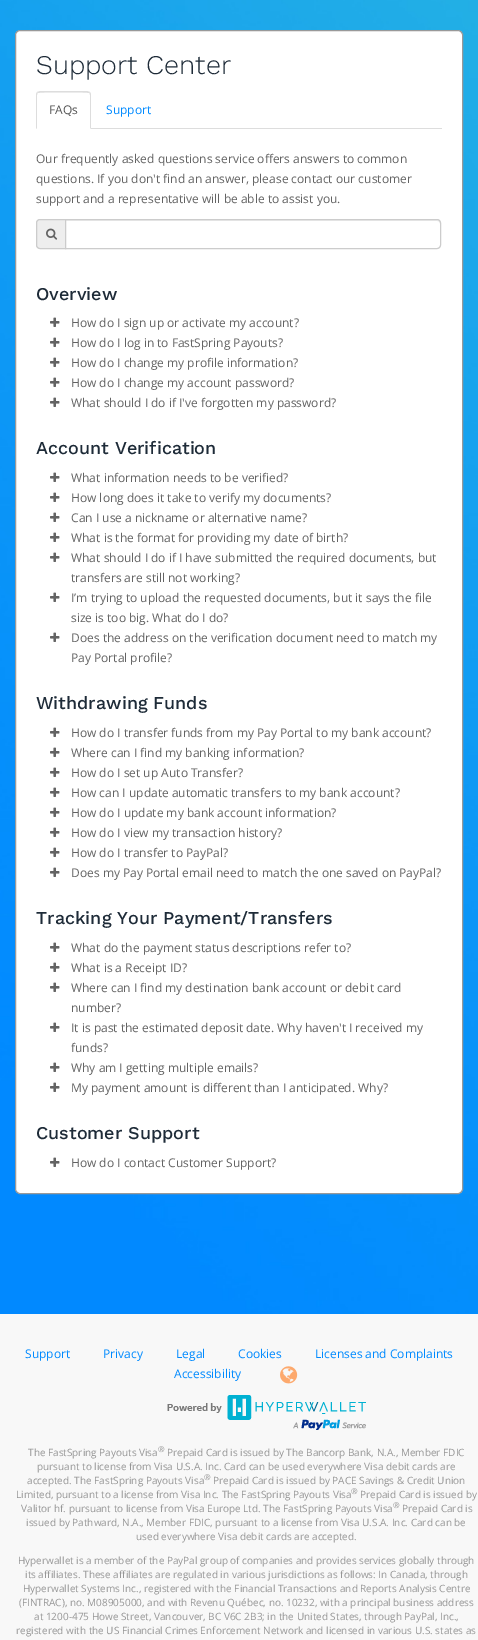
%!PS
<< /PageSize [478 1640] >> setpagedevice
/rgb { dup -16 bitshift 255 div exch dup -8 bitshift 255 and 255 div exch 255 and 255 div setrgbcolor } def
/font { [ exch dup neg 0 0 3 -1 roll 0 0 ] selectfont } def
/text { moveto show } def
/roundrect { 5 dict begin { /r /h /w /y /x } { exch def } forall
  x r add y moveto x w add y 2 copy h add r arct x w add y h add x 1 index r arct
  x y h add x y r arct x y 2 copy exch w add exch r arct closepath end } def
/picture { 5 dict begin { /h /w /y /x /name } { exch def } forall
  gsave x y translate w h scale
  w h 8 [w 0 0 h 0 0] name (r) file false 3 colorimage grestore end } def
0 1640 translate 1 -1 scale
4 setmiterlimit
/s1 { /WorkSans-Light 27 font 16#1E2B38 rgb } def
/s2 { /OpenSans-Regular 12 font 16#555555 rgb } def
/s3 { /OpenSans-Regular 12 font 16#008AFF rgb } def
/s4 { /OpenSans-Regular 12 font 16#636363 rgb } def
/s5 { /WorkSans-Medium 18 font 16#1E2B38 rgb } def
/s6 { /OpenSans-Regular 10 font 16#969696 rgb } def
/s7 { /OpenSans-Regular 8 font 16#969696 rgb } def
16#FFFFFF rgb
0 0 478 1640 rectfill
(pic1.raw) 0 0 478 1314 picture
15.5 30.5 447 1163 4.5 roundrect gsave fill grestore
16#999999 rgb
stroke
s1
(Support Center) 36 74 text
16#DDDDDD rgb
91 128 351 1 rectfill
40 91 moveto 37 92 lineto 38 93 lineto 39 92 88 92 89 93 curveto 90 92 lineto 87 91 lineto closepath fill
91 129 moveto 91 95 lineto 91 94 90.5 93 90 92 curveto 89 93 lineto 90 93 90 94 90 95 curveto 90 128 lineto closepath 36 129 moveto 37 128 lineto 37 95 lineto 37 94 37 93 38 93 curveto 37 92 lineto 36.5 93 36 94 36 95 curveto closepath fill
s2
(FAQs) 49 114 text
s3
(Support) 106 114 text
s4
(Our frequently asked questions service offers answers to common) 36 163 text
(questions. If you don't find an answer, please contact our customer) 36 183 text
(support and a representative will be able to assist you.) 36 203 text
16#EEEEEE rgb
40 219.5 moveto 65.5 219.5 lineto 65.5 248.5 lineto 40 248.5 lineto 38 248.5 36.5 247 36.5 245 curveto 36.5 223 lineto 36.5 221 38 219.5 40 219.5 curveto closepath gsave fill grestore
16#CCCCCC rgb
stroke
(pic2.raw) 46 228 12 12 picture
16#FFFFFF rgb
65 219 moveto 437 219 lineto 439 219 441 221 441 223 curveto 441 245 lineto 441 247 439 249 437 249 curveto 65 249 lineto closepath fill
16#ECECEC rgb
66 221 moveto 437 221 lineto 439 221 440 222 440 224 curveto 440 223 lineto 440 221 439 220 437 220 curveto 66 220 lineto closepath fill
16#CCCCCC rgb
65.5 219.5 moveto 437 219.5 lineto 439 219.5 440.5 221 440.5 223 curveto 440.5 245 lineto 440.5 247 439 248.5 437 248.5 curveto 65.5 248.5 lineto closepath stroke
s5
(Overview) 36 300 text
(pic3.raw) 50 317 10 10 picture
s4
(How do I sign up or activate my account?) 71 327 text
(pic3.raw) 50 337 10 10 picture
(How do I log in to FastSpring Payouts?) 71 347 text
(pic3.raw) 50 357 10 10 picture
(How do I change my profile information?) 71 367 text
(pic3.raw) 50 377 10 10 picture
(How do I change my account password?) 71 387 text
(pic3.raw) 50 397 10 10 picture
(What should I do if I've forgotten my password?) 71 407 text
s5
(Account Verification) 36 454 text
(pic3.raw) 50 472 10 10 picture
s4
(What information needs to be verified?) 71 482 text
(pic3.raw) 50 492 10 10 picture
(How long does it take to verify my documents?) 71 502 text
(pic3.raw) 50 512 10 10 picture
(Can I use a nickname or alternative name?) 71 522 text
(pic3.raw) 50 532 10 10 picture
(What is the format for providing my date of birth?) 71 542 text
(pic3.raw) 50 552 10 10 picture
(What should I do if I have submitted the required documents, but) 71 562 text
(transfers are still not working?) 71 582 text
(pic3.raw) 50 592 10 10 picture
(I’m trying to upload the requested documents, but it says the file) 71 602 text
(size is too big. What do I do?) 71 622 text
(pic3.raw) 50 632 10 10 picture
(Does the address on the verification document need to match my) 71 642 text
(Pay Portal profile?) 71 662 text
s5
(Withdrawing Funds) 36 709 text
(pic3.raw) 50 727 10 10 picture
s4
(How do I transfer funds from my Pay Portal to my bank account?) 71 737 text
(pic3.raw) 50 747 10 10 picture
(Where can I find my banking information?) 71 757 text
(pic3.raw) 50 767 10 10 picture
(How do I set up Auto Transfer?) 71 777 text
(pic3.raw) 50 787 10 10 picture
(How can I update automatic transfers to my bank account?) 71 797 text
(pic3.raw) 50 807 10 10 picture
(How do I update my bank account information?) 71 817 text
(pic3.raw) 50 827 10 10 picture
(How do I view my transaction history?) 71 837 text
(pic3.raw) 50 847 10 10 picture
(How do I transfer to PayPal?) 71 857 text
(pic3.raw) 50 867 10 10 picture
(Does my Pay Portal email need to match the one saved on PayPal?) 71 877 text
s5
(Tracking Your Payment/Transfers) 36 924 text
(pic3.raw) 50 942 10 10 picture
s4
(What do the payment status descriptions refer to?) 71 952 text
(pic3.raw) 50 962 10 10 picture
(What is a Receipt ID?) 71 972 text
(pic3.raw) 50 982 10 10 picture
(Where can I find my destination bank account or debit card) 71 992 text
(number?) 71 1012 text
(pic3.raw) 50 1022 10 10 picture
(It is past the estimated deposit date. Why haven't I received my) 71 1032 text
(funds?) 71 1052 text
(pic3.raw) 50 1062 10 10 picture
(Why am I getting multiple emails?) 71 1072 text
(pic3.raw) 50 1082 10 10 picture
(My payment amount is different than I anticipated. Why?) 71 1092 text
s5
(Customer Support) 36 1139 text
(pic3.raw) 50 1157 10 10 picture
s4
(How do I contact Customer Support?) 71 1167 text
16#F8F8F8 rgb
0 1314 478 326 rectfill
s3
(Support) 25 1358 text
(Privacy) 103 1358 text
(Legal) 176 1358 text
(Cookies) 238 1358 text
(Licenses and Complaints) 315 1358 text
(Accessibility) 174 1378 text
(pic4.raw) 280 1366 18 18 picture
(pic5.raw) 167 1395 199 35 picture
s6
(The FastSpring Payouts Visa) 28 1456 text
s7
(®) 158 1452 text
s6
(Prepaid Card is issued by The Bancorp Bank, N.A., Member FDIC) 167 1456 text
(pursuant to license from Visa U.S.A. Inc. Card can be used everywhere Visa debit cards are) 37 1470 text
(accepted. The FastSpring Payouts Visa) 27 1484 text
s7
(®) 204 1480 text
s6
(Prepaid Card is issued by PACE Savings & Credit Union) 213 1484 text
(Limited, pursuant to a license from Visa Inc. The FastSpring Payouts Visa) 16 1498 text
s7
(®) 351 1494 text
s6
(Prepaid Card is issued by) 360 1498 text
(Valitor hf. pursuant to license from Visa Europe Ltd. The FastSpring Payouts Visa) 21 1512 text
s7
(®) 393 1508 text
s6
(Prepaid Card is) 402 1512 text
(issued by Pathward, N.A., Member FDIC, pursuant to a license from Visa U.S.A. Inc. Card can be) 26 1526 text
(used everywhere Visa debit cards are accepted.) 136 1540 text
(Hyperwallet is a member of the PayPal group of companies and provides services globally through) 18 1564 text
(its affiliates. These affiliates are regulated in various jurisdictions as follows: In Canada, through) 25 1578 text
(Hyperwallet Systems Inc., registered with the Financial Transactions and Reports Analysis Centre) 23 1592 text
(\(FINTRAC\), no. M08905000, and with Revenu Québec, no. 10232, with a principal business address) 19 1606 text
(at 1200-475 Howe Street, Vancouver, BC V6C 2B3; in the United States, through PayPal, Inc.,) 34 1620 text
(registered with the US Financial Crimes Enforcement Network and licensed in various U.S. states as) 16 1634 text
showpage
